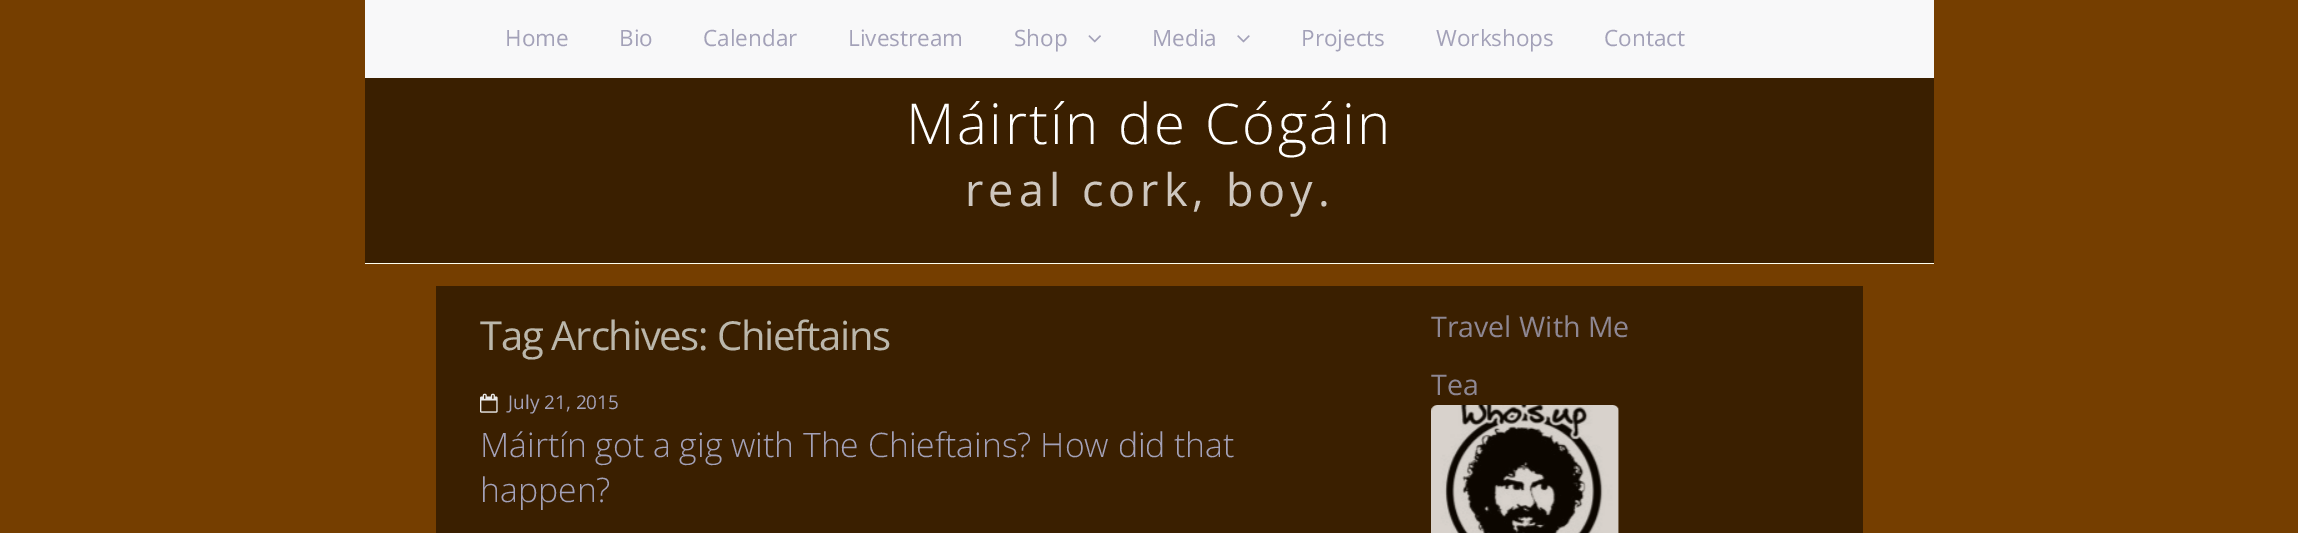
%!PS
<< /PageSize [2298 533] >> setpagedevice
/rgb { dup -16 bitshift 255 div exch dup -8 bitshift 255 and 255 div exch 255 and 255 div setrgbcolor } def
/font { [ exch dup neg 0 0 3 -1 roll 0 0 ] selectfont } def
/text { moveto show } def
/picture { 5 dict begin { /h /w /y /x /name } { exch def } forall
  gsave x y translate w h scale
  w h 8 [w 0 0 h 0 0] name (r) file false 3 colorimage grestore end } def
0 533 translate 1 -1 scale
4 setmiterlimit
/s1 { /OpenSans-Regular 22.5 font 16#A3A1B8 rgb } def
/s2 { /OpenSans-Regular 19 font 16#A3A1B8 rgb } def
/s3 { /OpenSans-Light 33.75 font 16#A3A1B8 rgb } def
/s4 { /OpenSans-Regular 28.5 font 16#8E8793 rgb } def
16#753E00 rgb
0 0 2298 533 rectfill
16#3A1F00 rgb
365 78 1569 185 rectfill
16#FFFFF0 rgb
365 263 1569 1 rectfill
16#F8F8F9 rgb
365 0 1569 78 rectfill
s1
(Home) 505 46 text
(Bio) 619 46 text
(Calendar) 703 46 text
(Livestream) 848 46 text
(Shop) 1014 46 text
(pic1.raw) 1088 35 13 8 picture
(Media) 1152 46 text
(pic2.raw) 1237 35 13 8 picture
(Projects) 1301 46 text
(Workshops) 1436 46 text
(Contact) 1604 46 text
/OpenSans-Light 56.25 font
16#FFFFFF rgb
906 144 moveto 2.5 0 (Máirtín de Cógáin) ashow
/OpenSans-Regular 45 font
16#CEC7BF rgb
965 206 moveto 5 0 (real cork, boy.) ashow
16#3A1F00 rgb
436 286 1427 247 rectfill
/OpenSans-Regular 40 font
16#BBB7AB rgb
480 350 moveto -1.25 0 (Tag Archives: Chieftains) ashow
(pic3.raw) 480 393 18 20 picture
s2
(July 21, 2015) 508 409 text
s3
(Máirtín got a gig with The Chieftains? How did that) 480 457 text
(happen?) 480 502 text
s4
(Travel With Me) 1431 337 text
(Tea) 1431 395 text
(pic4.raw) 1431 405 188 128 picture
showpage
